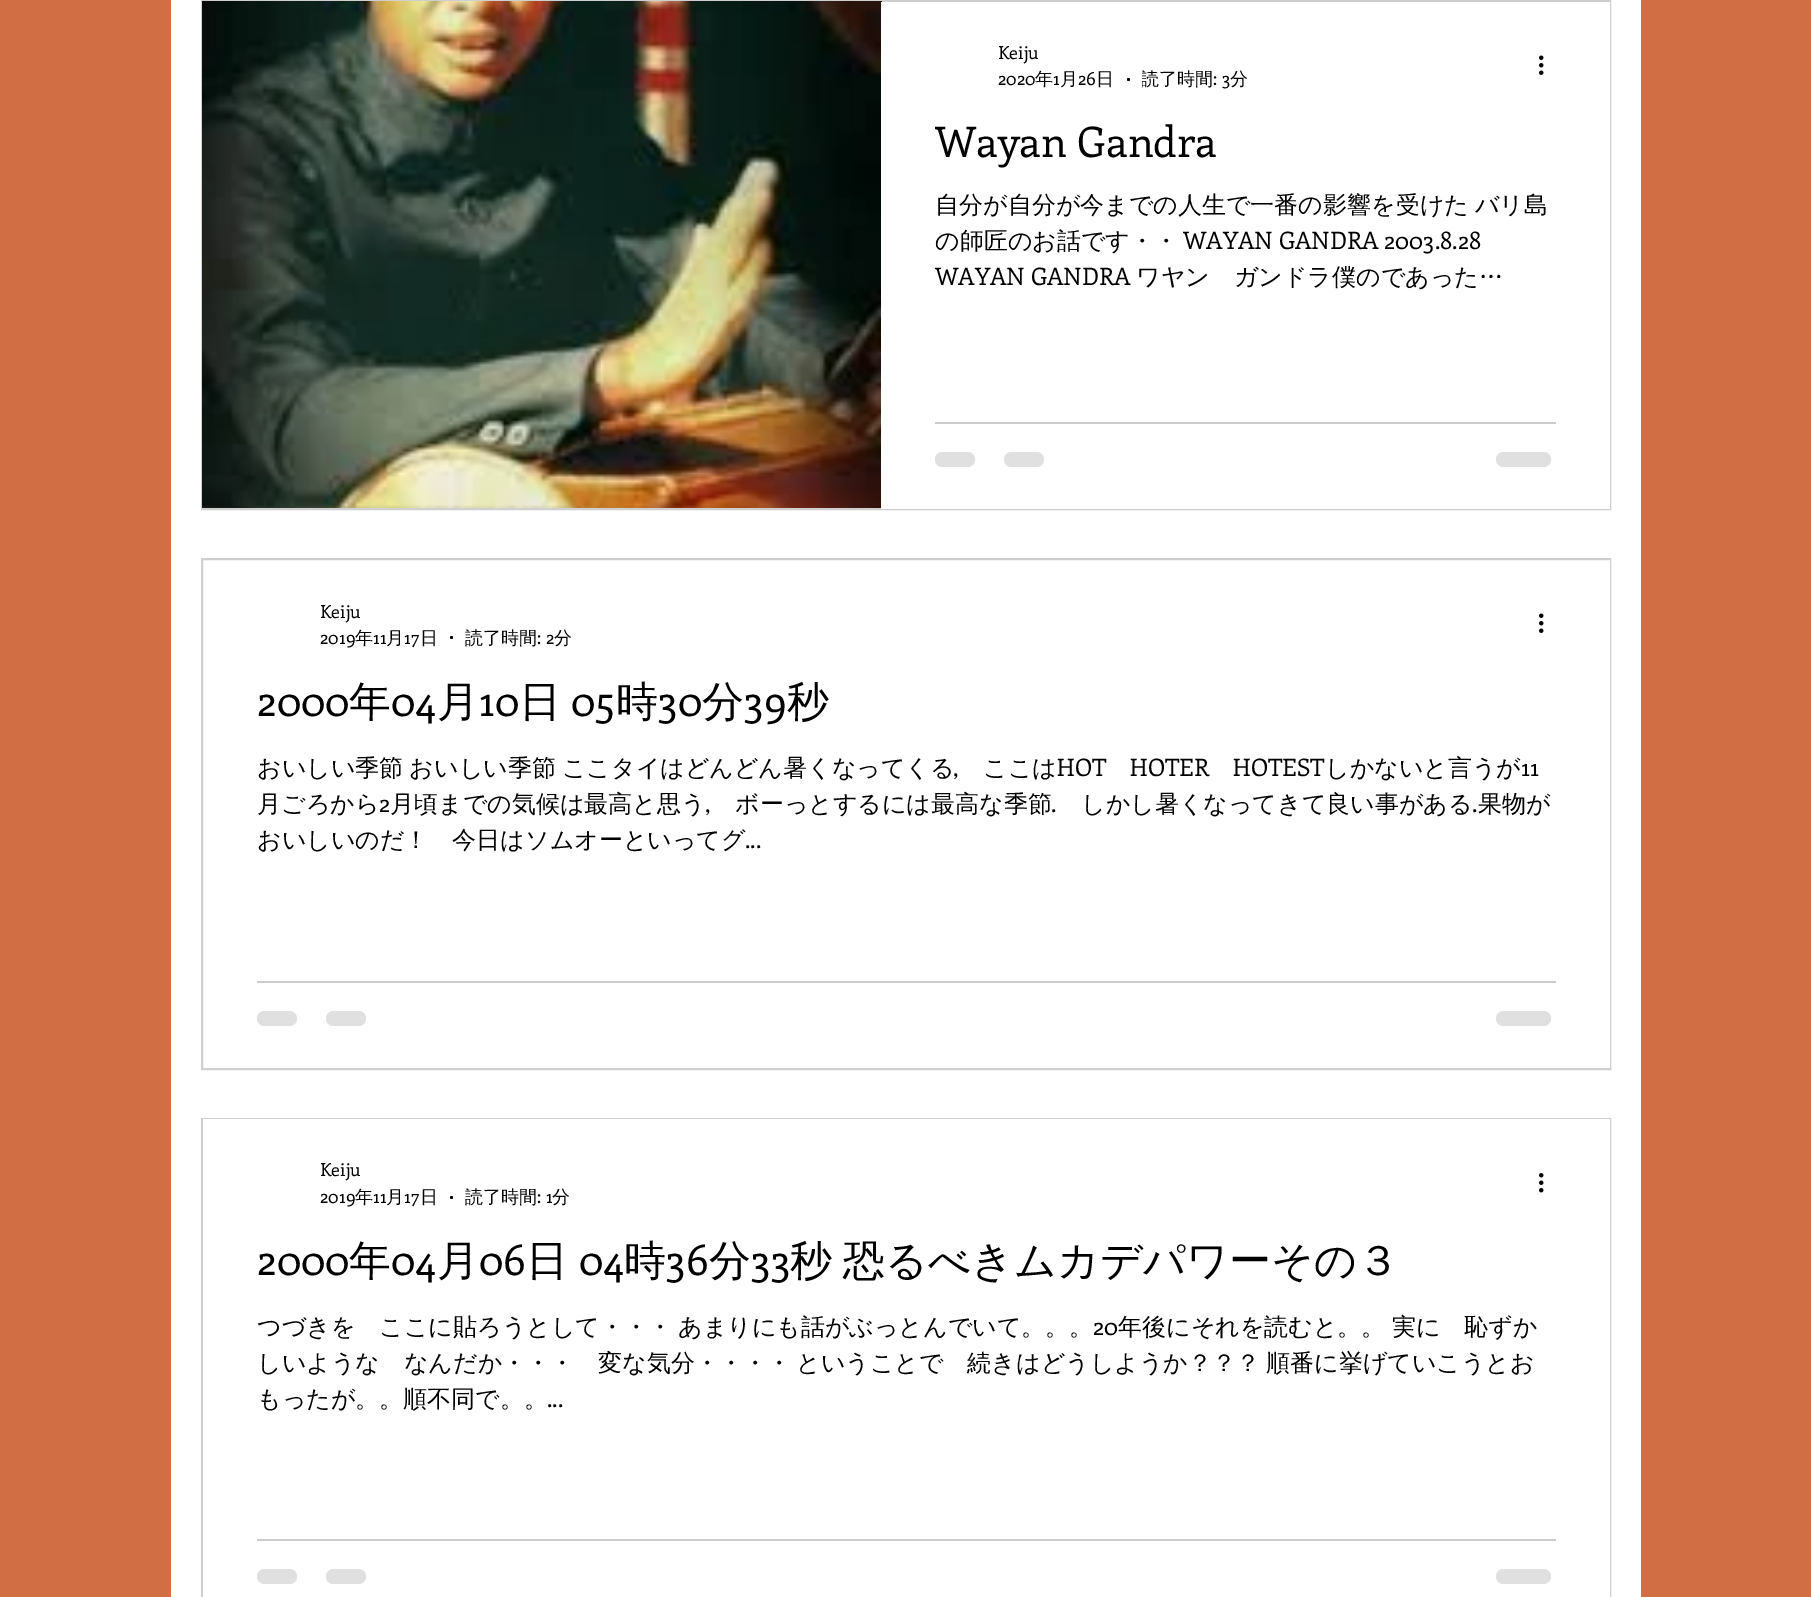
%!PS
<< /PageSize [1811 1597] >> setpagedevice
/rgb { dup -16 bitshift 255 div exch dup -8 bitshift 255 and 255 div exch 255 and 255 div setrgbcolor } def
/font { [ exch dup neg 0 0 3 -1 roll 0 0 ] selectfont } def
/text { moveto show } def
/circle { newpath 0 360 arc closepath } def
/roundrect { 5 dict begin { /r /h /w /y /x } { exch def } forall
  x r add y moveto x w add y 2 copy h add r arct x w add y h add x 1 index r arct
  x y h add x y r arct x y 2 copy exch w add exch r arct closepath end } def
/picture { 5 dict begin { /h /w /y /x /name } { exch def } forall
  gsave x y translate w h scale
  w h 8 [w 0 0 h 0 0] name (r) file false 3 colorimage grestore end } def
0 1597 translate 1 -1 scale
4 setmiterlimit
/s1 { /Enriqueta-Regular 18 font 16#000000 rgb } def
/s2 { /WenQuanYiZenHei-Medium 18 font 16#000000 rgb } def
/s3 { /Enriqueta-Regular 42 font 16#000000 rgb } def
/s4 { /WenQuanYiZenHei-Medium 24 font 16#000000 rgb } def
/s5 { /Enriqueta-Regular 24 font 16#000000 rgb } def
/s6 { /WenQuanYiZenHei-Medium 42 font 16#000000 rgb } def
16#D16E43 rgb
0 0 1811 1597 rectfill
16#FFFFFF rgb
171 0 1470 1597 rectfill
16#CFCFCF rgb
2 setlinewidth
202 1 1408 508 rectstroke
(pic2.raw) 202 505 679 3 picture
(pic1.raw) 202 1 680 507 picture
16#FFFFFF rgb
881 2 729 507 rectfill
s1
(Keiju) 998 59 text
(2020) 998 85 text
s2
(年) 1035 85 text
s1
(1) 1053 85 text
s2
(月) 1060 85 text
s1
(26) 1078 85 text
s2
(日) 1096 85 text
1128.5 79.5 1.5 circle fill
gsave
1142 66 106 27 rectclip
(読了時間) 1141 85 text
grestore
s1
(: 3) 1213 85 text
s2
(分) 1230 85 text
(pic3.raw) 1539 55 5 20 picture
gsave
935 113 621 55 rectclip
s3
(Wayan Gandra) 935 157 text
grestore
/WenQuanYiZenHei-Medium 24 font
935 213 moveto -1 0 32 (自分が自分が今までの人生で一番の影響を受けた バリ島) widthshow
(の師匠のお話です・・) 935 249 text
s5
(WAYAN GANDRA 2003.8.28) 1183 249 text
gsave
935 186 621 108 rectclip
(WAYAN GANDRA) 935 285 text
grestore
s4
(ワヤン　ガンドラ僕のであった…) 1136 285 text
16#CCCCCC rgb
935 422 621 2 rectfill
16#E0E0E0 rgb
935 452 40 15 7.5 roundrect fill
1004 452 40 15 7.5 roundrect fill
1496 452 55 15 7.5 roundrect fill
16#CFCFCF rgb
202 559 1408 510 rectstroke
16#FFFFFF rgb
1609 560 1 508 rectfill
s1
(Keiju) 320 618 text
(2019) 320 644 text
s2
(年) 355 644 text
s1
(11) 373 644 text
s2
(月) 386 644 text
s1
(17) 404 644 text
s2
(日) 420 644 text
451.5 637.5 1.5 circle fill
(読了時間) 465 644 text
s1
(: 2) 537 644 text
s2
(分) 554 644 text
(pic3.raw) 1539 613 5 20 picture
s3
(2000) 257 716 text
s6
(年) 349 716 text
s3
(04) 391 716 text
s6
(月) 437 716 text
s3
(10) 479 716 text
s6
(日) 519 716 text
s3
(05) 571 716 text
s6
(時) 616 716 text
s3
(30) 658 716 text
s6
(分) 702 716 text
s3
(39) 744 716 text
s6
(秒) 787 716 text
/WenQuanYiZenHei-Medium 24 font
257 776 moveto -1 0 32 (おいしい季節 おいしい季節 ここタイはどんどん暑くなってくる) widthshow
s5
(,) 953 776 text
s4
(ここは) 983 776 text
s5
(HOT) 1057 776 text
(HOTER) 1130 776 text
(HOTEST) 1233 776 text
s4
(しかないと言うが) 1325 776 text
s5
(11) 1521 776 text
s4
(月ごろから) 257 812 text
s5
(2) 379 812 text
s4
(月頃までの気候は最高と思う) 390 812 text
s5
(,) 705 812 text
s4
(ボーっとするには最高な季節) 735 812 text
s5
(.) 1051 812 text
s4
(しかし暑くなってきて良い事がある) 1081 812 text
s5
(.) 1472 812 text
s4
(果物が) 1478 812 text
(おいしいのだ！　今日はソムオーといってグ) 257 848 text
s5
(...) 745 848 text
16#CCCCCC rgb
257 981 1299 2 rectfill
16#E0E0E0 rgb
257 1011 40 15 7.5 roundrect fill
326 1011 40 15 7.5 roundrect fill
1496 1011 55 15 7.5 roundrect fill
16#CFCFCF rgb
202 1119 1408 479 rectstroke
16#FFFFFF rgb
203 1119 1407 478 rectfill
s1
(Keiju) 320 1176 text
(2019) 320 1203 text
s2
(年) 355 1203 text
s1
(11) 373 1203 text
s2
(月) 386 1203 text
s1
(17) 404 1203 text
s2
(日) 420 1203 text
451.5 1197.5 1.5 circle fill
(読了時間) 465 1203 text
s1
(: 1) 537 1203 text
s2
(分) 552 1203 text
(pic4.raw) 1539 1173 5 20 picture
s3
(2000) 257 1275 text
s6
(年) 349 1275 text
s3
(04) 391 1275 text
s6
(月) 437 1275 text
s3
(06) 479 1275 text
s6
(日) 526 1275 text
s3
(04) 579 1275 text
s6
(時) 624 1275 text
s3
(36) 666 1275 text
s6
(分) 709 1275 text
s3
(33) 751 1275 text
s6
(秒) 790 1275 text
(恐るべきムカデパワーその３) 843 1275 text
/WenQuanYiZenHei-Medium 24 font
257 1335 moveto -1 0 32 (つづきを　ここに貼ろうとして・・・ あまりにも話がぶっとんでいて。。。) widthshow
s5
(20) 1093 1335 text
/WenQuanYiZenHei-Medium 24 font
1118 1335 moveto -1 0 32 (年後にそれを読むと。。 実に　恥ずか) widthshow
(しいような　なんだか・・・　変な気分・・・・) 257 1371 text
(ということで　続きはどうしようか？？？) 796 1371 text
(順番に挙げていこうとお) 1266 1371 text
(もったが。。順不同で。。) 257 1407 text
s5
(...) 547 1407 text
16#CCCCCC rgb
257 1539 1299 2 rectfill
16#E0E0E0 rgb
257 1569 40 15 7.5 roundrect fill
326 1569 40 15 7.5 roundrect fill
1496 1569 55 15 7.5 roundrect fill
showpage
